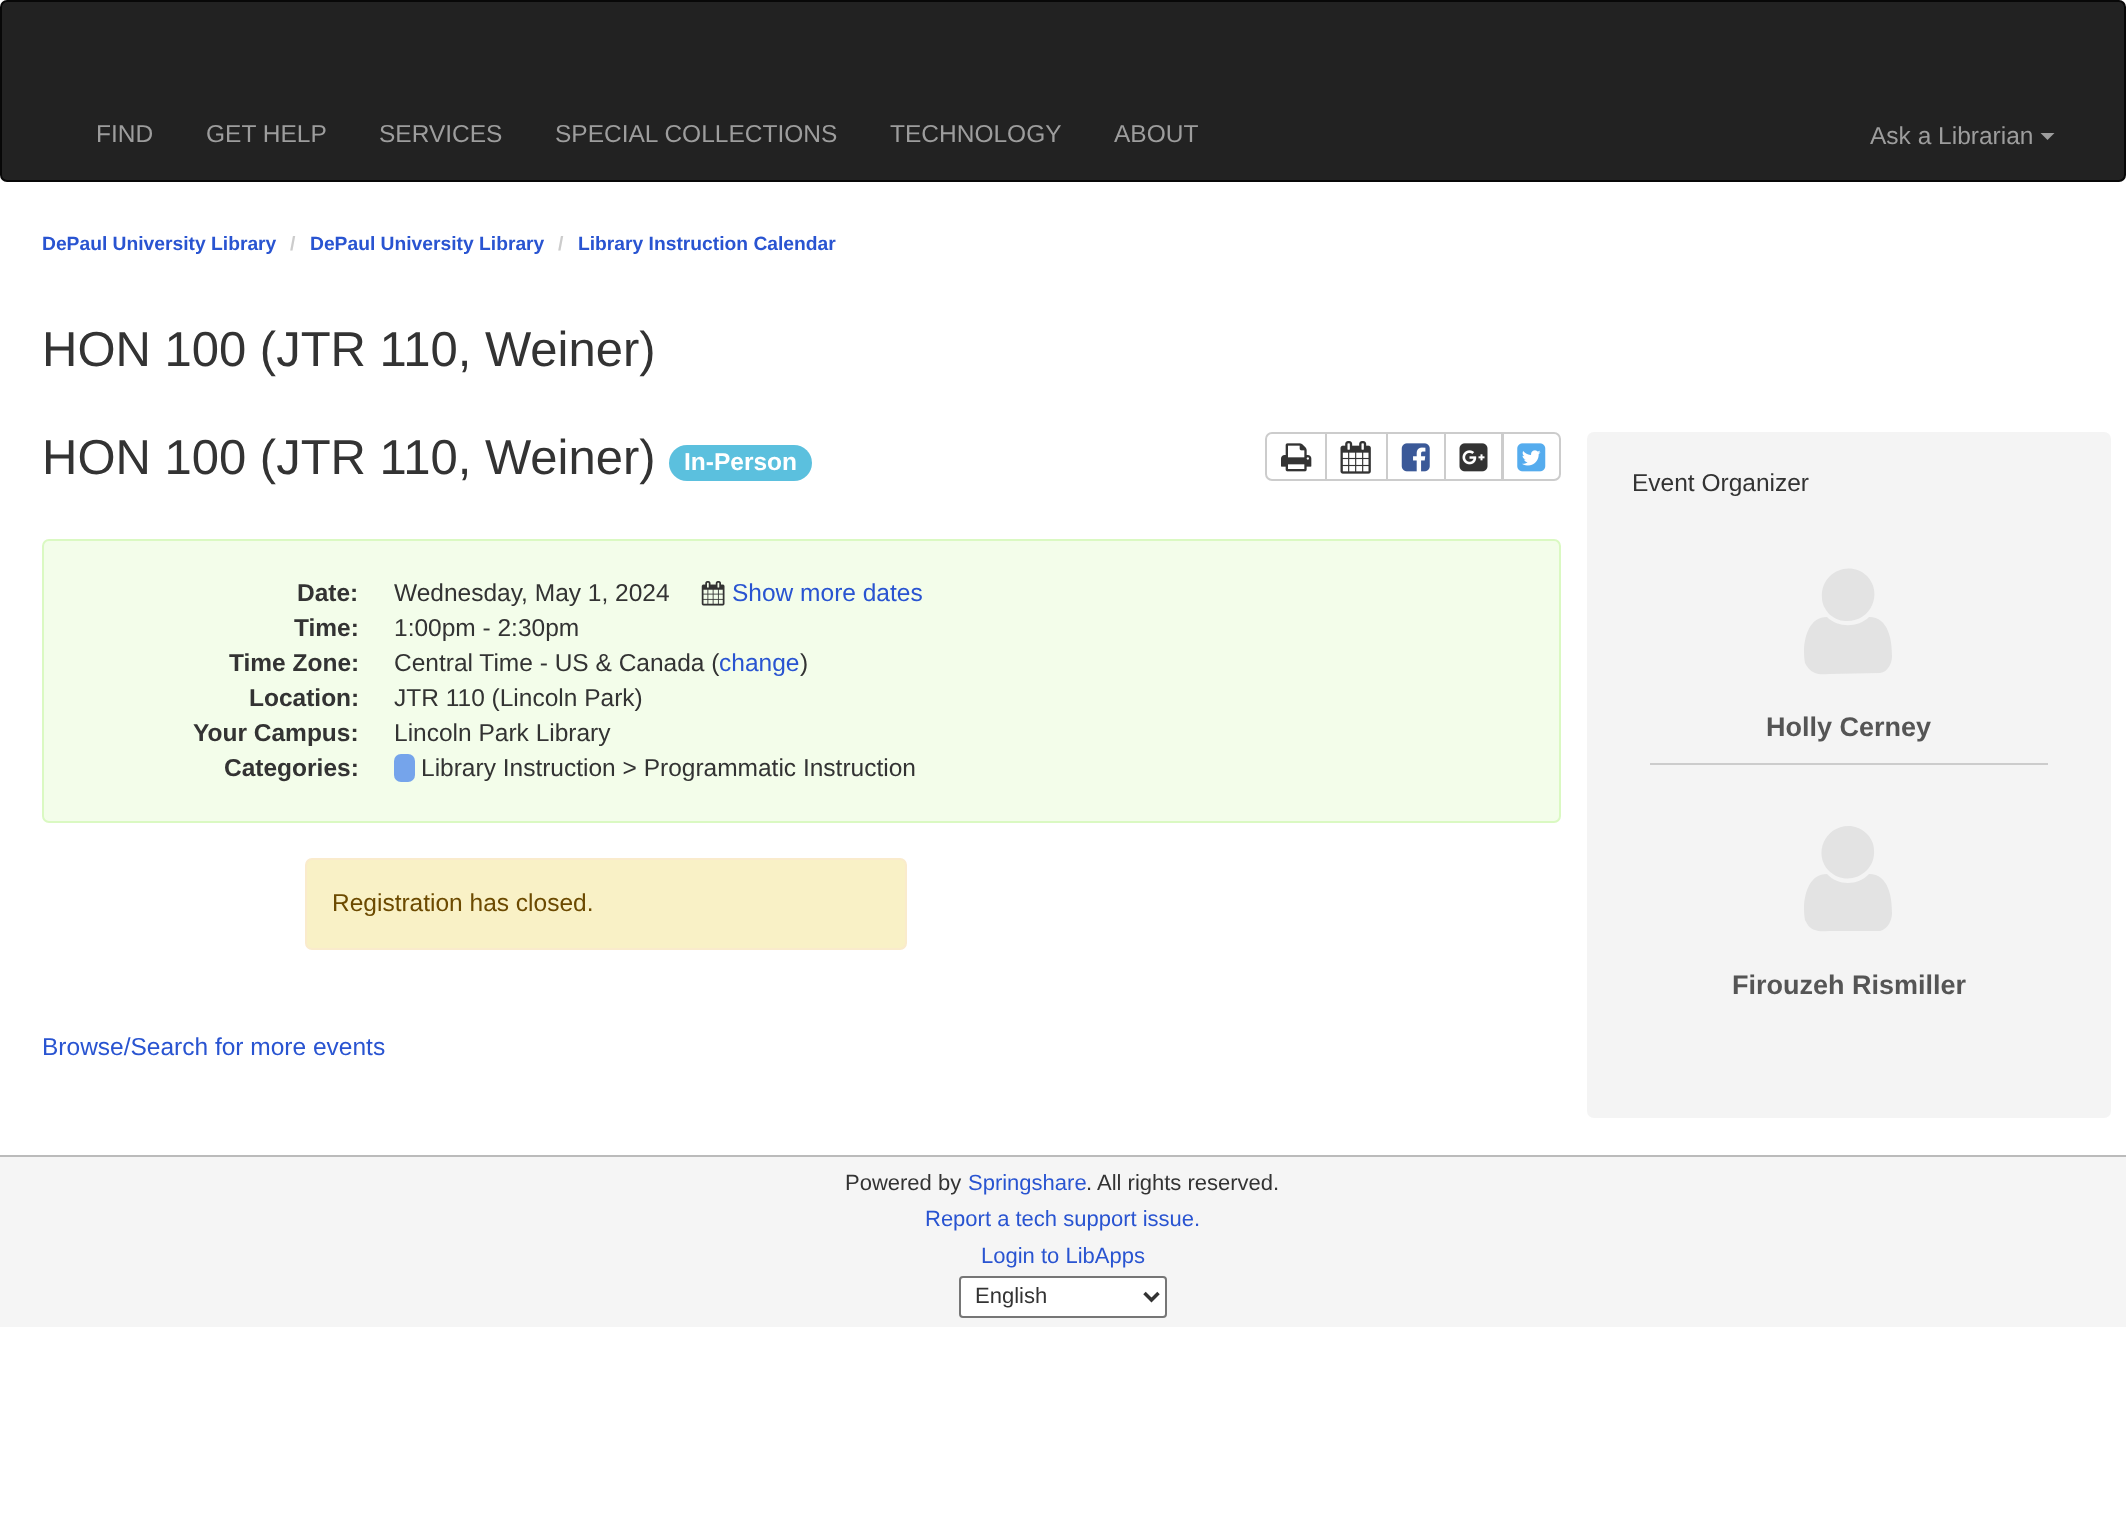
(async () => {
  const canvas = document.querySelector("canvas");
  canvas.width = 2126;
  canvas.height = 1530;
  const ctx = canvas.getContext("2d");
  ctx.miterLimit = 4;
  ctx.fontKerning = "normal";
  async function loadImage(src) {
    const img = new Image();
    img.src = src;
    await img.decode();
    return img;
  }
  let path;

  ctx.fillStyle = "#ffffff";
  ctx.fillRect(0, 0, 2126, 1530);
  ctx.fillStyle = "#222222";
  ctx.beginPath();
  ctx.roundRect(1, 1, 2124, 180, 6);
  ctx.fill();
  ctx.strokeStyle = "#080808";
  ctx.lineWidth = 2;
  ctx.stroke();
  ctx.fillStyle = "#9d9d9d";
  path = new Path2D("M2040.5 133H2054.5L2047.5 140Z");
  ctx.fill(path);
  ctx.fillStyle = "#5bc0de";
  ctx.beginPath();
  ctx.roundRect(669, 445, 143, 36, 18);
  ctx.fill();
  ctx.beginPath();
  ctx.roundRect(1266, 433, 60, 47, [6, 0, 0, 6]);
  ctx.strokeStyle = "#cccccc";
  ctx.stroke();
  ctx.drawImage(await loadImage("img/1.png"), 1281, 443, 31, 29);
  ctx.strokeRect(1326, 433, 61, 47);
  ctx.drawImage(await loadImage("img/2.png"), 1340, 441, 31, 33);
  ctx.strokeRect(1387, 433, 58, 47);
  ctx.drawImage(await loadImage("img/3.png"), 1401, 443, 29, 29);
  ctx.strokeRect(1445, 433, 57, 47);
  ctx.drawImage(await loadImage("img/4.png"), 1459, 443, 29, 29);
  ctx.fillStyle = "#ffffff";
  ctx.beginPath();
  ctx.roundRect(1503, 433, 57, 47, [0, 6, 6, 0]);
  ctx.fill();
  ctx.stroke();
  ctx.drawImage(await loadImage("img/5.png"), 1517, 443, 29, 29);
  ctx.fillStyle = "#f3fdea";
  ctx.beginPath();
  ctx.roundRect(43, 540, 1517, 282, 6);
  ctx.fill();
  ctx.strokeStyle = "#daf9c2";
  ctx.stroke();
  ctx.drawImage(await loadImage("img/6.png"), 701, 581, 24, 25);
  ctx.fillStyle = "#75a4eb";
  ctx.beginPath();
  ctx.roundRect(394, 754, 21, 28, 7);
  ctx.fill();
  ctx.fillStyle = "#f9f1c6";
  ctx.beginPath();
  ctx.roundRect(306, 859, 600, 90, 6);
  ctx.fill();
  ctx.strokeStyle = "#faebcc";
  ctx.stroke();
  ctx.fillStyle = "#f4f4f4";
  ctx.beginPath();
  ctx.roundRect(1587, 432, 524, 686, 7);
  ctx.fill();
  ctx.fillStyle = "#cccccc";
  ctx.fillRect(1650, 763, 398, 2);
  ctx.fillStyle = "#e3e3e3";
  path = new Path2D("M1892 656C1892 663 1888 672 1880 673L1829 674C1825 674 1819 675 1815 673C1810 671 1807 667 1805 663C1804 658 1804 653 1804 649C1805 635 1810 617 1827 617C1838 628 1858 628 1869 617C1889 617 1892 641 1892 656ZM1867 576C1884 594 1870 623 1845 621C1839 621 1834 618 1829 614C1825 609 1822 604 1822 598C1820 573 1849 559 1867 576Z");
  ctx.fill(path);
  path = new Path2D("M1892 913C1892 920 1888 929 1880 931H1829C1825 931 1819 932 1815 930C1810 929 1807 924 1805 920C1804 915 1804 910 1804 906C1805 892 1810 874 1827 874C1838 886 1858 886 1869 874C1889 874 1892 898 1892 913ZM1867 834C1871 838 1874 844 1874 850C1876 874 1847 888 1829 871C1812 853 1826 824 1851 826C1857 827 1862 829 1867 834Z");
  ctx.fill(path);
  ctx.fillStyle = "#f5f5f5";
  ctx.fillRect(0, 1157, 2126, 170);
  ctx.fillStyle = "#bbbbbb";
  ctx.fillRect(0, 1155, 2126, 2);
  ctx.fillStyle = "#ffffff";
  ctx.beginPath();
  ctx.roundRect(960, 1277, 206, 40, 3);
  ctx.fill();
  ctx.strokeStyle = "#767676";
  ctx.stroke();
  path = new Path2D("M1144.5 1293L1151.5 1300L1158.5 1293");
  ctx.strokeStyle = "#333333";
  ctx.lineWidth = 3.5;
  ctx.stroke(path);
  ctx.font = "24.5px Liberation Sans";
  ctx.fillStyle = "#9d9d9d";
  for (const [text, x, y] of [
    ["FIND", 96, 142],
    ["GET HELP", 206, 142],
    ["SERVICES", 379, 142],
    ["SPECIAL COLLECTIONS", 555, 142],
    ["TECHNOLOGY", 890, 142],
    ["ABOUT", 1114, 142],
    ["Ask a Librarian", 1870, 144],
  ]) {
    ctx.fillText(text, x, y);
  }
  ctx.font = "bold 19.25px Liberation Sans";
  ctx.fillStyle = "#2954d1";
  ctx.fillText("DePaul University Library", 42, 250);
  ctx.fillStyle = "#cccccc";
  ctx.fillText("/", 290, 250);
  ctx.fillStyle = "#2954d1";
  ctx.fillText("DePaul University Library", 310, 250);
  ctx.fillStyle = "#cccccc";
  ctx.fillText("/", 558, 250);
  ctx.fillStyle = "#2954d1";
  ctx.fillText("Library Instruction Calendar", 578, 250);
  ctx.font = "49px Liberation Sans";
  ctx.fillStyle = "#333333";
  ctx.fillText("HON 100 (JTR 110, Weiner)", 42, 366);
  ctx.fillText("HON 100 (JTR 110, Weiner)", 42, 474);
  ctx.font = "bold 24.5px Liberation Sans";
  ctx.fillStyle = "#ffffff";
  ctx.fillText("In-Person", 684, 470);
  ctx.fillStyle = "#333333";
  ctx.fillText("Date:", 297, 601);
  ctx.font = "24.5px Liberation Sans";
  ctx.fillText("Wednesday, May 1, 2024", 394, 601);
  ctx.fillStyle = "#2954d1";
  ctx.fillText("Show more dates", 732, 601);
  ctx.font = "bold 24.5px Liberation Sans";
  ctx.fillStyle = "#333333";
  ctx.fillText("Time:", 294, 636);
  ctx.font = "24.5px Liberation Sans";
  ctx.fillText("1:00pm - 2:30pm", 394, 636);
  ctx.font = "bold 24.5px Liberation Sans";
  ctx.fillText("Time Zone:", 229, 671);
  ctx.font = "24.5px Liberation Sans";
  ctx.fillText("Central Time - US & Canada (", 394, 671);
  ctx.fillStyle = "#2954d1";
  ctx.fillText("change", 719, 671);
  ctx.fillStyle = "#333333";
  ctx.fillText(")", 800, 671);
  ctx.font = "bold 24.5px Liberation Sans";
  ctx.fillText("Location:", 249, 706);
  ctx.font = "24.5px Liberation Sans";
  ctx.fillText("JTR 110 (Lincoln Park)", 394, 706);
  ctx.font = "bold 24.5px Liberation Sans";
  ctx.fillText("Your Campus:", 193, 741);
  ctx.font = "24.5px Liberation Sans";
  ctx.fillText("Lincoln Park Library", 394, 741);
  ctx.font = "bold 24.5px Liberation Sans";
  ctx.fillText("Categories:", 224, 776);
  ctx.font = "24.5px Liberation Sans";
  ctx.fillText("Library Instruction > Programmatic Instruction", 421, 776);
  ctx.fillStyle = "#6c4a00";
  ctx.fillText("Registration has closed.", 332, 911);
  ctx.fillStyle = "#2954d1";
  ctx.fillText("Browse/Search for more events", 42, 1055);
  ctx.fillStyle = "#333333";
  ctx.fillText("Event Organizer", 1632, 491);
  ctx.font = "bold 27px Liberation Sans";
  ctx.fillStyle = "#555555";
  ctx.fillText("Holly Cerney", 1766, 736);
  ctx.fillText("Firouzeh Rismiller", 1732, 994);
  ctx.font = "22px Liberation Sans";
  ctx.fillStyle = "#333333";
  ctx.fillText("Powered by", 845, 1190);
  ctx.fillStyle = "#2954d1";
  ctx.fillText("Springshare", 968, 1190);
  ctx.fillStyle = "#333333";
  ctx.fillText(". All rights reserved.", 1086, 1190);
  ctx.fillStyle = "#2954d1";
  ctx.fillText("Report a tech support issue.", 925, 1226);
  ctx.fillText("Login to LibApps", 981, 1263);
  ctx.fillStyle = "#333333";
  ctx.fillText("English", 975, 1303);
})();
